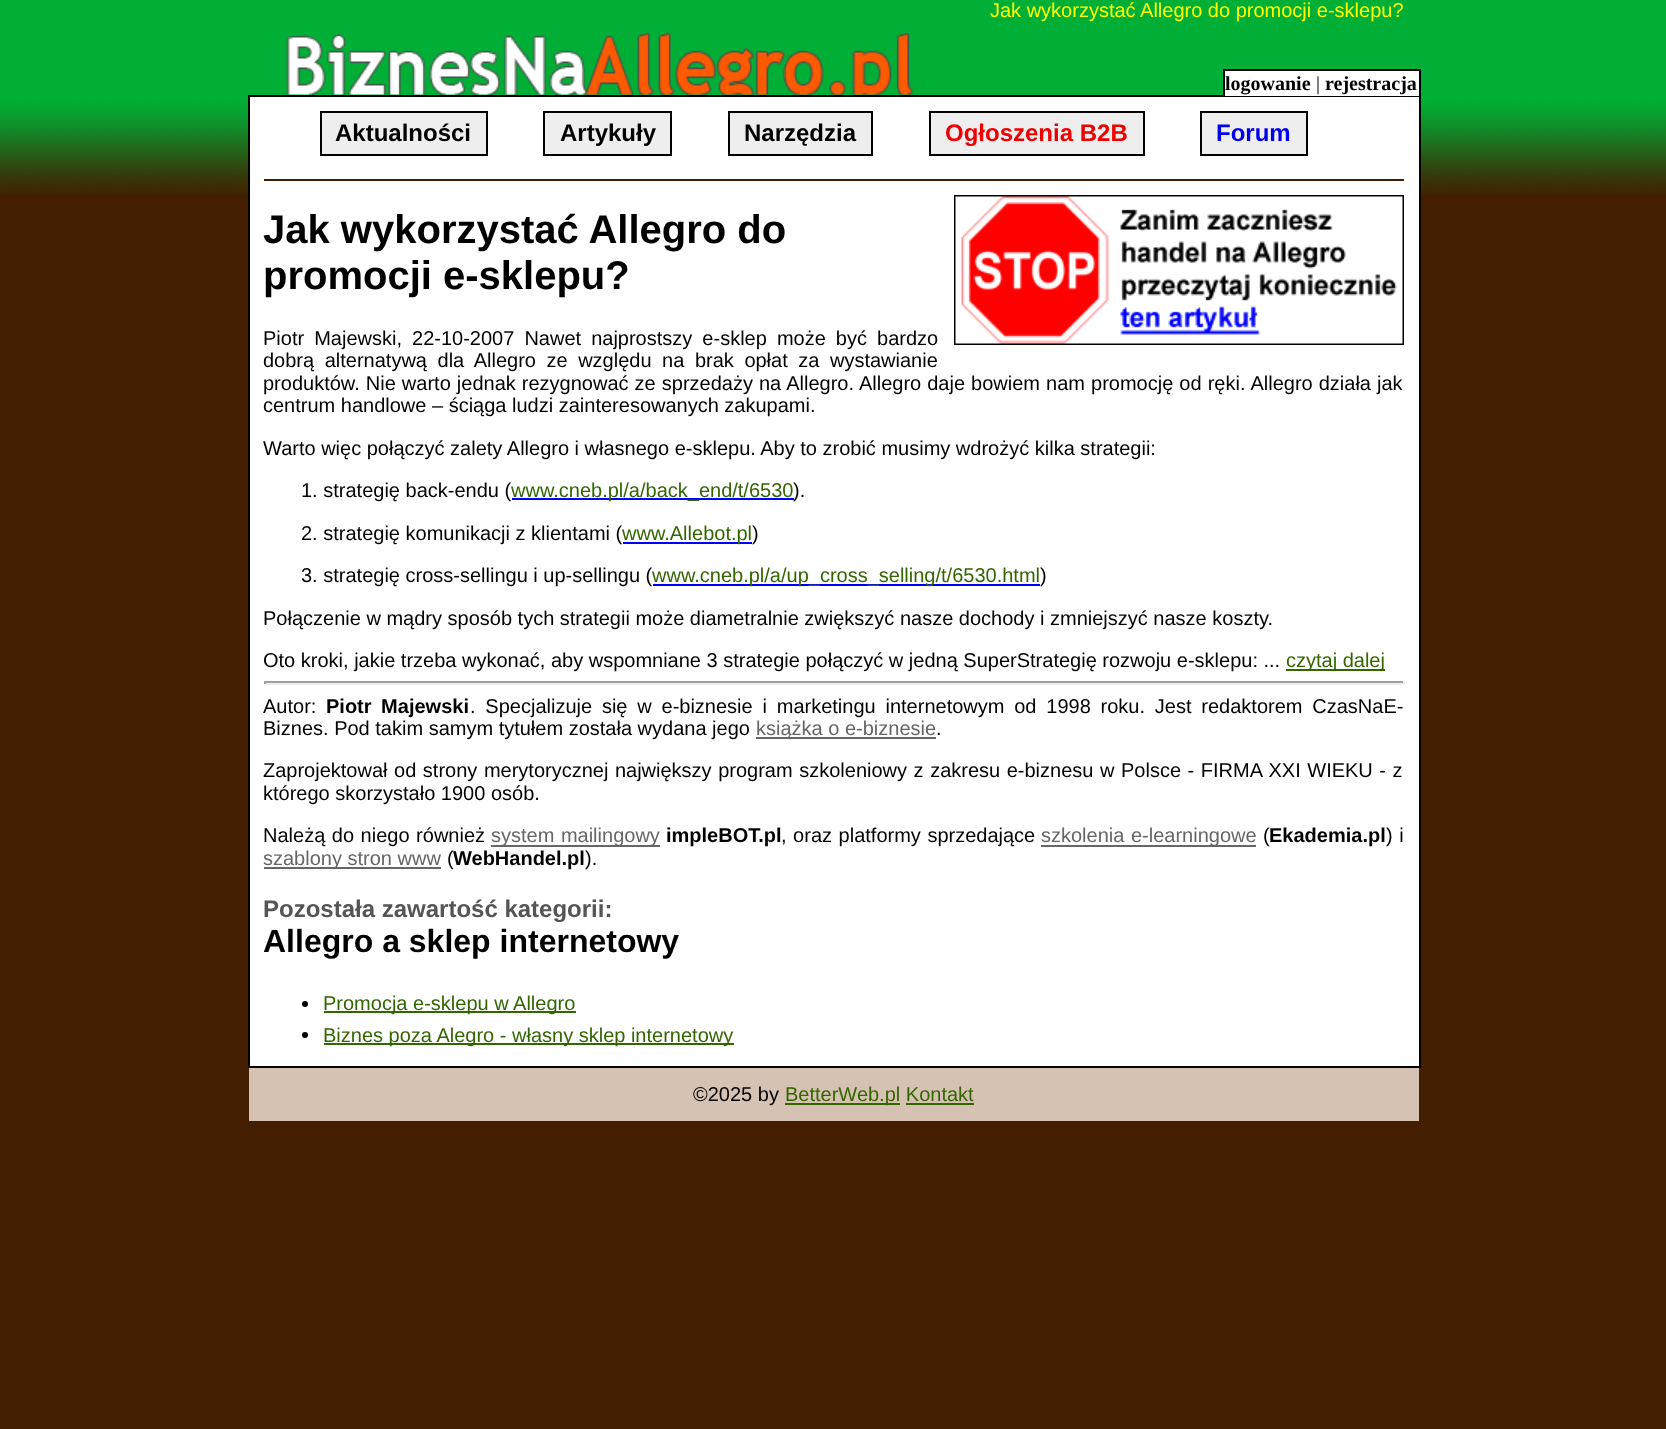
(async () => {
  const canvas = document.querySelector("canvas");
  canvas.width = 1666;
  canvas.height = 1429;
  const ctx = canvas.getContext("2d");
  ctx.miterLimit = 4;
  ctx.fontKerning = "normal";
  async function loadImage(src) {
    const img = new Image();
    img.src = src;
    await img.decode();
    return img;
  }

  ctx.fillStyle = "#431e01";
  ctx.fillRect(0, 0, 1666, 1429);
  ctx.drawImage(await loadImage("img/1.png"), 0, 0, 1666, 195);
  ctx.drawImage(await loadImage("img/2.png"), 286, 32, 628, 63);
  ctx.fillStyle = "#ffffff";
  ctx.beginPath();
  ctx.rect(249, 96, 1171, 971);
  ctx.fill();
  ctx.strokeStyle = "#000000";
  ctx.lineWidth = 2;
  ctx.stroke();
  for (const [x, y, w, h, color] of [
    [1225, 71, 194, 25, "#ffffff"],
    [1223, 69, 198, 2, "#000000"],
    [1419, 69, 2, 27, "#000000"],
    [1223, 69, 2, 27, "#000000"],
    [264, 179, 1140, 2, "#431e01"],
  ]) {
    ctx.fillStyle = color;
    ctx.fillRect(x, y, w, h);
  }
  ctx.fillStyle = "#eeeeee";
  ctx.beginPath();
  ctx.rect(321, 112, 166, 43);
  ctx.fill();
  ctx.stroke();
  ctx.beginPath();
  ctx.rect(544, 112, 127, 43);
  ctx.fill();
  ctx.stroke();
  ctx.beginPath();
  ctx.rect(729, 112, 143, 43);
  ctx.fill();
  ctx.stroke();
  ctx.beginPath();
  ctx.rect(930, 112, 214, 43);
  ctx.fill();
  ctx.stroke();
  ctx.beginPath();
  ctx.rect(1201, 112, 106, 43);
  ctx.fill();
  ctx.stroke();
  ctx.drawImage(await loadImage("img/3.png"), 954, 195, 450, 150);
  for (const [x, y, w, h, color] of [
    [512, 498, 282, 2, "#0000ff"],
    [623, 542, 129, 2, "#0000ff"],
    [653, 584, 387, 2, "#0000ff"],
    [1286, 669, 99, 2, "#336600"],
    [264, 681, 1140, 2, "#9f9f9f"],
    [1403, 681, 2, 3, "#eeeeee"],
    [264, 683, 1140, 2, "#eeeeee"],
    [264, 681, 2, 3, "#9f9f9f"],
    [756, 737, 180, 2, "#666666"],
    [491, 845, 169, 2, "#666666"],
    [1041, 845, 215, 2, "#666666"],
    [264, 867, 177, 2, "#666666"],
  ]) {
    ctx.fillStyle = color;
    ctx.fillRect(x, y, w, h);
  }
  ctx.fillStyle = "#000000";
  ctx.beginPath();
  ctx.arc(305, 1004, 3, 0, Math.PI * 2);
  ctx.fill();
  ctx.fillStyle = "#336600";
  ctx.fillRect(324, 1011, 252, 2);
  ctx.fillStyle = "#000000";
  ctx.beginPath();
  ctx.arc(305, 1035, 3, 0, Math.PI * 2);
  ctx.fill();
  for (const [x, y, w, h, color] of [
    [324, 1043, 410, 2, "#336600"],
    [249, 1068, 1170, 53, "#d6c2b3"],
    [785, 1103, 115, 2, "#336600"],
    [906, 1103, 68, 2, "#336600"],
  ]) {
    ctx.fillStyle = color;
    ctx.fillRect(x, y, w, h);
  }
  ctx.font = "20px Liberation Sans";
  ctx.fillStyle = "#ffff00";
  ctx.fillText("Jak wykorzystać Allegro do promocji e-sklepu?", 990, 17);
  ctx.font = "bold 20px Liberation Serif";
  ctx.fillStyle = "#000000";
  ctx.fillText("logowanie", 1225, 90);
  ctx.font = "20px Liberation Serif";
  ctx.fillText("|", 1316, 90);
  ctx.font = "bold 20px Liberation Serif";
  ctx.fillText("rejestracja", 1325, 90);
  ctx.font = "bold 24px Liberation Sans";
  for (const [text, x, y] of [
    ["Aktualności", 335, 141],
    ["Artykuły", 560, 141],
    ["Narzędzia", 744, 141],
  ]) {
    ctx.fillText(text, x, y);
  }
  ctx.fillStyle = "#ee0000";
  ctx.fillText("Ogłoszenia B2B", 945, 141);
  ctx.fillStyle = "#0000ee";
  ctx.fillText("Forum", 1216, 141);
  ctx.font = "bold 40px Liberation Sans";
  ctx.fillStyle = "#000000";
  ctx.fillText("Jak wykorzystać Allegro do", 263, 243);
  ctx.fillText("promocji e-sklepu?", 263, 289);
  ctx.wordSpacing = "4.5px";
  ctx.font = "20px Liberation Sans";
  ctx.fillText("Piotr Majewski, 22-10-2007 Nawet najprostszy e-sklep może być bardzo", 263, 345);
  ctx.wordSpacing = "5px";
  ctx.fillText("dobrą alternatywą dla Allegro ze względu na brak opłat za wystawianie", 263, 367);
  ctx.wordSpacing = "0.5px";
  ctx.fillText("produktów. Nie warto jednak rezygnować ze sprzedaży na Allegro. Allegro daje bowiem nam promocję od ręki. Allegro działa jak", 263, 390);
  ctx.wordSpacing = "0px";
  for (const [text, x, y] of [
    ["centrum handlowe – ściąga ludzi zainteresowanych zakupami.", 263, 412],
    ["Warto więc połączyć zalety Allegro i własnego e-sklepu. Aby to zrobić musimy wdrożyć kilka strategii:", 263, 455],
    ["1. strategię back-endu (", 301, 497],
  ]) {
    ctx.fillText(text, x, y);
  }
  ctx.fillStyle = "#336600";
  ctx.fillText("www.cneb.pl/a/back_end/t/6530", 511, 497);
  ctx.fillStyle = "#000000";
  ctx.fillText(").", 793, 497);
  ctx.fillText("2. strategię komunikacji z klientami (", 301, 540);
  ctx.fillStyle = "#336600";
  ctx.fillText("www.Allebot.pl", 622, 540);
  ctx.fillStyle = "#000000";
  ctx.fillText(")", 752, 540);
  ctx.fillText("3. strategię cross-sellingu i up-sellingu (", 301, 582);
  ctx.fillStyle = "#336600";
  ctx.fillText("www.cneb.pl/a/up_cross_selling/t/6530.html", 652, 582);
  ctx.fillStyle = "#000000";
  for (const [text, x, y] of [
    [")", 1040, 582],
    ["Połączenie w mądry sposób tych strategii może diametralnie zwiększyć nasze dochody i zmniejszyć nasze koszty.", 263, 625],
    ["Oto kroki, jakie trzeba wykonać, aby wspomniane 3 strategie połączyć w jedną SuperStrategię rozwoju e-sklepu: ...", 263, 667],
  ]) {
    ctx.fillText(text, x, y);
  }
  ctx.fillStyle = "#336600";
  ctx.fillText("czytaj dalej", 1286, 667);
  ctx.fillStyle = "#000000";
  ctx.fillText("Autor:", 263, 713);
  ctx.wordSpacing = "4px";
  ctx.font = "bold 20px Liberation Sans";
  ctx.fillText("Piotr Majewski", 326, 713);
  ctx.wordSpacing = "4.25px";
  ctx.font = "20px Liberation Sans";
  ctx.fillText(". Specjalizuje się w e-biznesie i marketingu internetowym od 1998 roku. Jest redaktorem CzasNaE-", 470, 713);
  ctx.wordSpacing = "0px";
  ctx.fillText("Biznes. Pod takim samym tytułem została wydana jego", 263, 735);
  ctx.fillStyle = "#666666";
  ctx.fillText("książka o e-biznesie", 756, 735);
  ctx.fillStyle = "#000000";
  ctx.fillText(".", 936, 735);
  ctx.wordSpacing = "1px";
  ctx.fillText("Zaprojektował od strony merytorycznej największy program szkoleniowy z zakresu e-biznesu w Polsce - FIRMA XXI WIEKU - z", 263, 777);
  ctx.wordSpacing = "0px";
  ctx.fillText("którego skorzystało 1900 osób.", 263, 800);
  ctx.wordSpacing = "1px";
  ctx.fillText("Należą do niego również", 263, 842);
  ctx.fillStyle = "#666666";
  ctx.fillText("system mailingowy", 491, 842);
  ctx.wordSpacing = "0px";
  ctx.font = "bold 20px Liberation Sans";
  ctx.fillStyle = "#000000";
  ctx.fillText("impleBOT.pl", 666, 842);
  ctx.wordSpacing = "1px";
  ctx.font = "20px Liberation Sans";
  ctx.fillText(", oraz platformy sprzedające", 781, 842);
  ctx.fillStyle = "#666666";
  ctx.fillText("szkolenia e-learning", 1041, 842);
  ctx.wordSpacing = "0px";
  ctx.fillText("owe", 1220, 842);
  ctx.fillStyle = "#000000";
  ctx.fillText("(", 1263, 842);
  ctx.font = "bold 20px Liberation Sans";
  ctx.fillText("Ekademia.pl", 1269, 842);
  ctx.wordSpacing = "1px";
  ctx.font = "20px Liberation Sans";
  ctx.fillText(") i", 1386, 842);
  ctx.wordSpacing = "0px";
  ctx.fillStyle = "#666666";
  ctx.fillText("szablony stron www", 263, 865);
  ctx.fillStyle = "#000000";
  ctx.fillText("(", 447, 865);
  ctx.font = "bold 20px Liberation Sans";
  ctx.fillText("WebHandel.pl", 453, 865);
  ctx.font = "20px Liberation Sans";
  ctx.fillText(").", 585, 865);
  ctx.font = "bold 24px Liberation Sans";
  ctx.fillStyle = "#555555";
  ctx.fillText("Pozostała zawartość kategorii:", 263, 917);
  ctx.font = "bold 32px Liberation Sans";
  ctx.fillStyle = "#000000";
  ctx.fillText("Allegro a sklep internetowy", 263, 952);
  ctx.font = "20px Liberation Sans";
  ctx.fillStyle = "#336600";
  ctx.fillText("Promocja e-sklepu w Allegro", 323, 1010);
  ctx.fillText("Biznes poza Alegro - własny sklep internetowy", 323, 1042);
  ctx.fillStyle = "#000000";
  ctx.fillText("©2025 by", 693, 1101);
  ctx.fillStyle = "#336600";
  ctx.fillText("BetterWeb.pl Kontakt", 785, 1101);
})();
